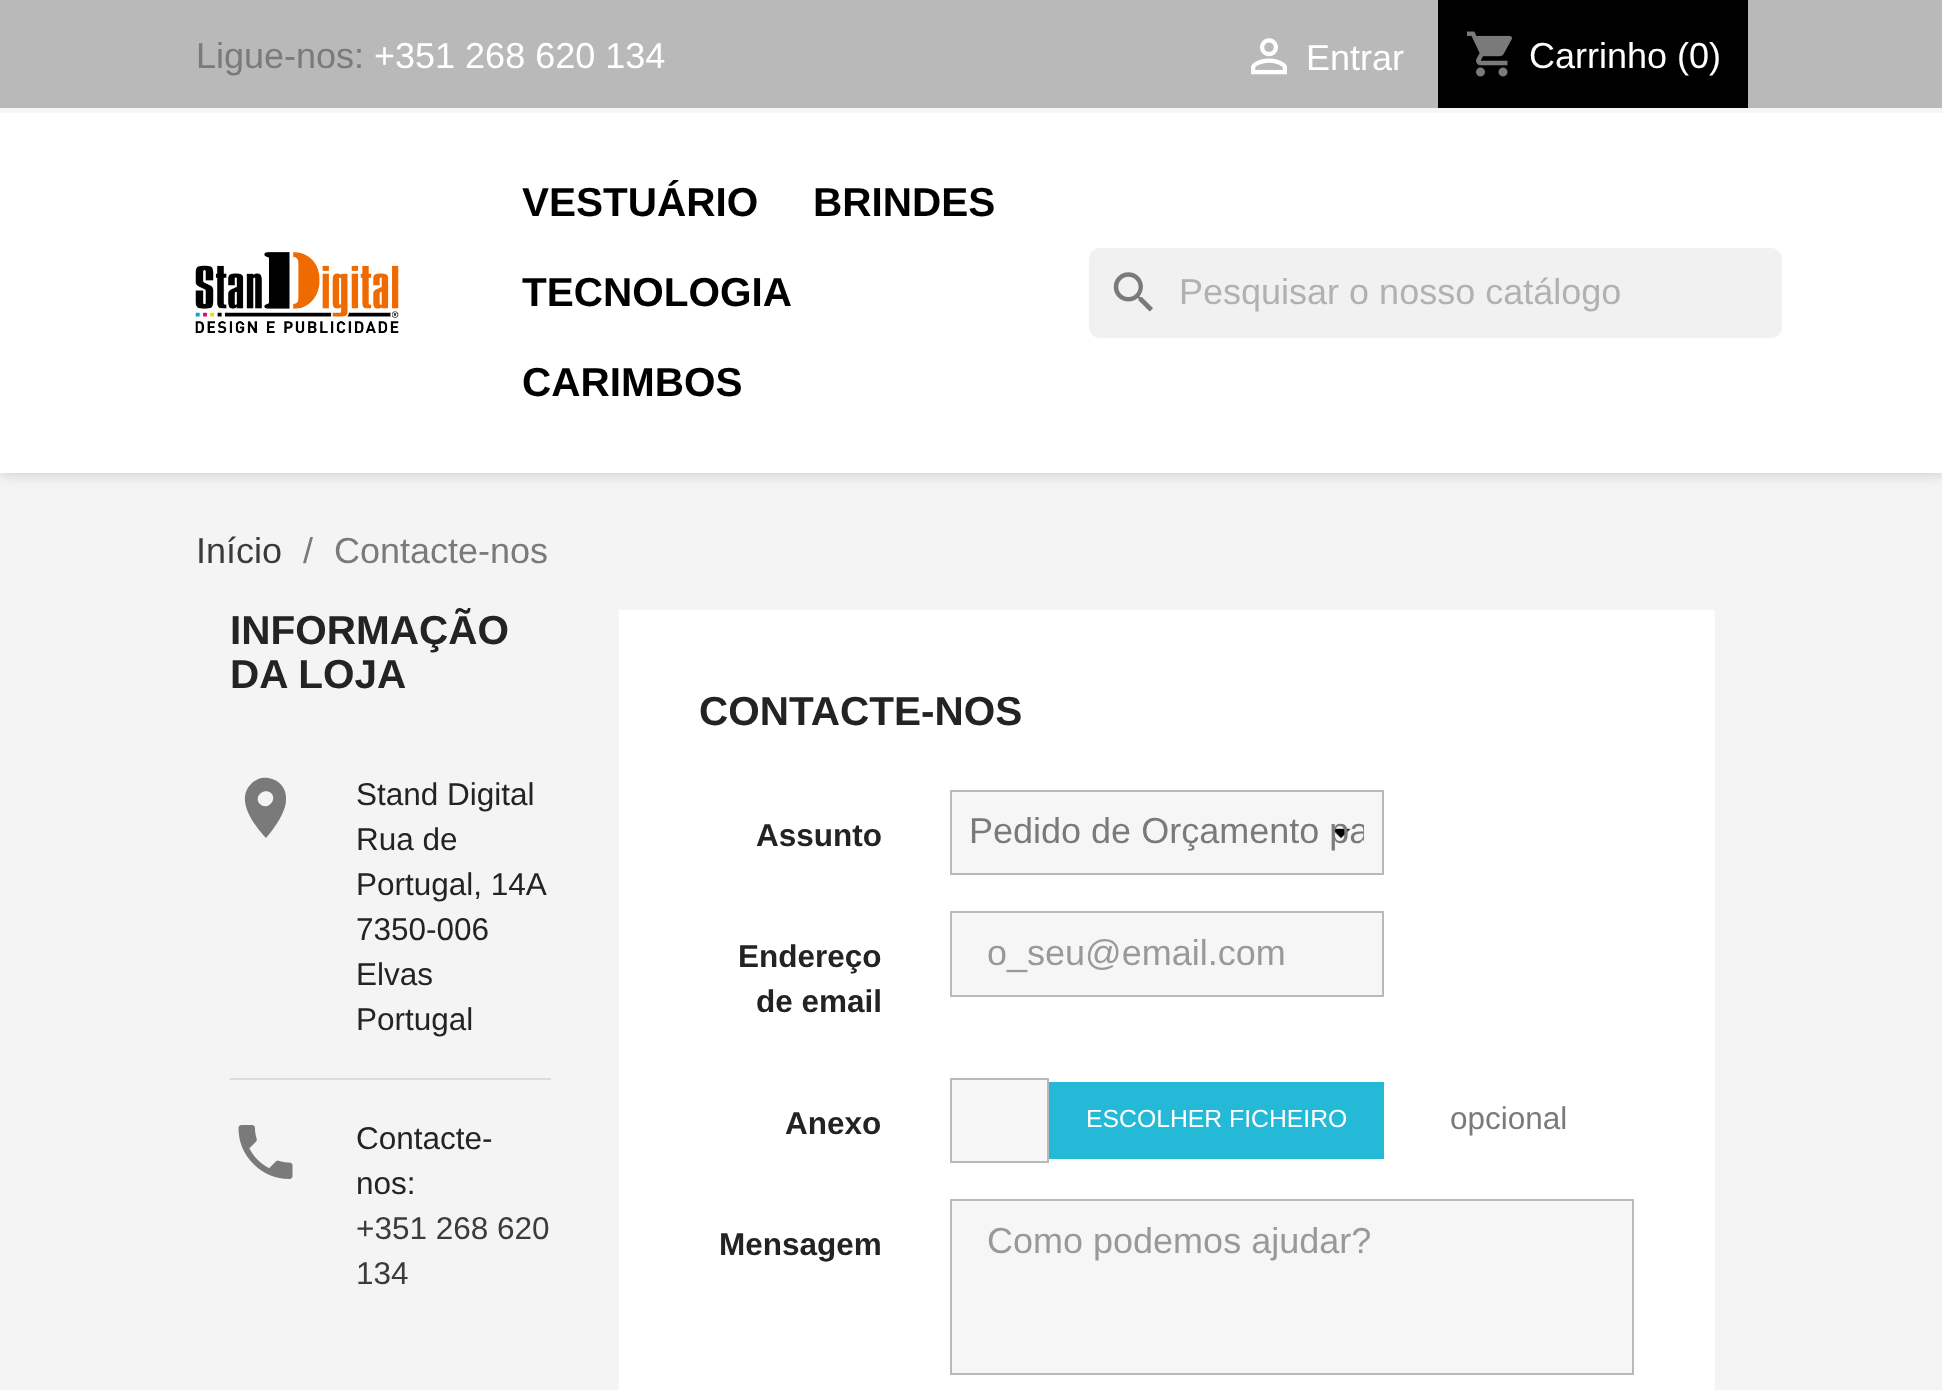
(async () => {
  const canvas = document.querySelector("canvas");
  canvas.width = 1942;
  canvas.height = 1390;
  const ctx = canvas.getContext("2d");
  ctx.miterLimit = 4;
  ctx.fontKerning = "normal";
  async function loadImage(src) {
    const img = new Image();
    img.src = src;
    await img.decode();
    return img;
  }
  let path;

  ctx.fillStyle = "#f4f4f4";
  ctx.fillRect(0, 0, 1942, 1390);
  ctx.fillStyle = "rgba(0, 0, 0, 0.11)";
  ctx.filter = "blur(5.5px)";
  ctx.beginPath();
  ctx.rect(0, 5, 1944, 472);
  ctx.fill();
  ctx.filter = "none";
  for (const [x, y, w, h, color] of [
    [0, 113, 1942, 360, "#ffffff"],
    [0, 0, 1942, 108, "#b9b9b9"],
    [0, 108, 1942, 5, "#f6f6f6"],
  ]) {
    ctx.fillStyle = color;
    ctx.fillRect(x, y, w, h);
  }
  ctx.drawImage(await loadImage("img/1.png"), 1251, 38, 36, 37);
  ctx.fillStyle = "#000000";
  ctx.fillRect(1438, 0, 310, 108);
  ctx.drawImage(await loadImage("img/2.png"), 1466, 31, 46, 46);
  ctx.drawImage(await loadImage("img/3.png"), 195, 252, 204, 81);
  ctx.fillStyle = "#f1f1f1";
  ctx.beginPath();
  ctx.roundRect(1089, 248, 693, 90, 11);
  ctx.fill();
  ctx.drawImage(await loadImage("img/4.png"), 1113, 272, 40, 40);
  ctx.fillStyle = "#7a7a7a";
  path = new Path2D("M260 804C267 811 278 800 271 793C264 787 253 797 260 804ZM251 784C264 770 288 781 286 800C286 812 274 829 266 838C254 825 235 800 251 784Z");
  ctx.fill(path);
  ctx.fillStyle = "#dcdcdc";
  ctx.fillRect(230, 1078, 321, 2);
  ctx.drawImage(await loadImage("img/5.png"), 238, 1125, 55, 54);
  ctx.fillStyle = "#ffffff";
  ctx.fillRect(619, 610, 1096, 780);
  ctx.fillStyle = "#f6f6f6";
  ctx.fillRect(952, 792, 430, 81);
  ctx.drawImage(await loadImage("img/6.png"), 1331, 828, 20, 11);
  ctx.strokeStyle = "#b9b9b9";
  ctx.lineWidth = 2;
  ctx.strokeRect(951, 791, 432, 83);
  ctx.beginPath();
  ctx.rect(951, 912, 432, 84);
  ctx.fill();
  ctx.stroke();
  ctx.beginPath();
  ctx.rect(951, 1079, 97, 83);
  ctx.fill();
  ctx.stroke();
  ctx.fillStyle = "#24b9d7";
  ctx.fillRect(1049, 1082, 335, 77);
  ctx.fillStyle = "#f6f6f6";
  ctx.beginPath();
  ctx.rect(951, 1200, 682, 174);
  ctx.fill();
  ctx.stroke();
  ctx.font = "36px Liberation Sans";
  ctx.fillStyle = "#7a7a7a";
  ctx.fillText("Ligue-nos:", 196, 68);
  ctx.fillStyle = "#ffffff";
  for (const [text, x, y] of [
    ["+351 268 620 134", 374, 68],
    ["Entrar", 1306, 70],
    ["Carrinho (0)", 1529, 68],
  ]) {
    ctx.fillText(text, x, y);
  }
  ctx.font = "bold 40.5px Liberation Sans";
  ctx.fillStyle = "#000000";
  for (const [text, x, y] of [
    ["VESTUÁRIO", 522, 216],
    ["BRINDES", 813, 216],
    ["TECNOLOGIA", 522, 306],
    ["CARIMBOS", 522, 396],
  ]) {
    ctx.fillText(text, x, y);
  }
  ctx.font = "36px Liberation Sans";
  ctx.fillStyle = "#b1b1b1";
  ctx.fillText("Pesquisar o nosso catálogo", 1179, 304);
  ctx.fillStyle = "#3b3b3b";
  ctx.fillText("Início", 196, 563);
  ctx.fillStyle = "#7a7a7a";
  ctx.fillText("/", 303, 563);
  ctx.fillText("Contacte-nos", 334, 563);
  ctx.font = "bold 40.5px Liberation Sans";
  ctx.fillStyle = "#232323";
  ctx.fillText("INFORMAÇÃO", 230, 644);
  ctx.fillText("DA LOJA", 230, 688);
  ctx.font = "31.5px Liberation Sans";
  for (const [text, x, y] of [
    ["Stand Digital", 356, 805],
    ["Rua de", 356, 850],
    ["Portugal, 14A", 356, 895],
    ["7350-006", 356, 940],
    ["Elvas", 356, 985],
    ["Portugal", 356, 1030],
    ["Contacte-", 356, 1149],
    ["nos:", 356, 1194],
  ]) {
    ctx.fillText(text, x, y);
  }
  ctx.fillStyle = "#3b3b3b";
  ctx.fillText("+351 268 620", 356, 1239);
  ctx.fillText("134", 356, 1284);
  ctx.font = "bold 40.5px Liberation Sans";
  ctx.fillStyle = "#232323";
  ctx.fillText("CONTACTE-NOS", 699, 725);
  ctx.font = "bold 31.5px Liberation Sans";
  ctx.fillText("Assunto", 756, 846);
  ctx.save();
  ctx.beginPath();
  ctx.rect(970, 810, 394, 45);
  ctx.clip();
  ctx.font = "36px Liberation Sans";
  ctx.fillStyle = "#7a7a7a";
  ctx.fillText("Pedido de Orçamento pa", 969, 843);
  ctx.restore();
  ctx.fillText("Endereço", 738, 967);
  ctx.fillText("de email", 756, 1012);
  ctx.font = "36px Liberation Sans";
  ctx.fillStyle = "#999999";
  ctx.fillText("o_seu@email.com", 987, 965);
  ctx.font = "bold 31.5px Liberation Sans";
  ctx.fillStyle = "#232323";
  ctx.fillText("Anexo", 785, 1134);
  ctx.font = "24.75px Liberation Sans";
  ctx.fillStyle = "#ffffff";
  ctx.fillText("ESCOLHER FICHEIRO", 1086, 1127);
  ctx.font = "31.5px Liberation Sans";
  ctx.fillStyle = "#7a7a7a";
  ctx.fillText("opcional", 1450, 1129);
  ctx.font = "bold 31.5px Liberation Sans";
  ctx.fillStyle = "#232323";
  ctx.fillText("Mensagem", 719, 1255);
  ctx.font = "36px Liberation Sans";
  ctx.fillStyle = "#999999";
  ctx.fillText("Como podemos ajudar?", 987, 1253);
})();
